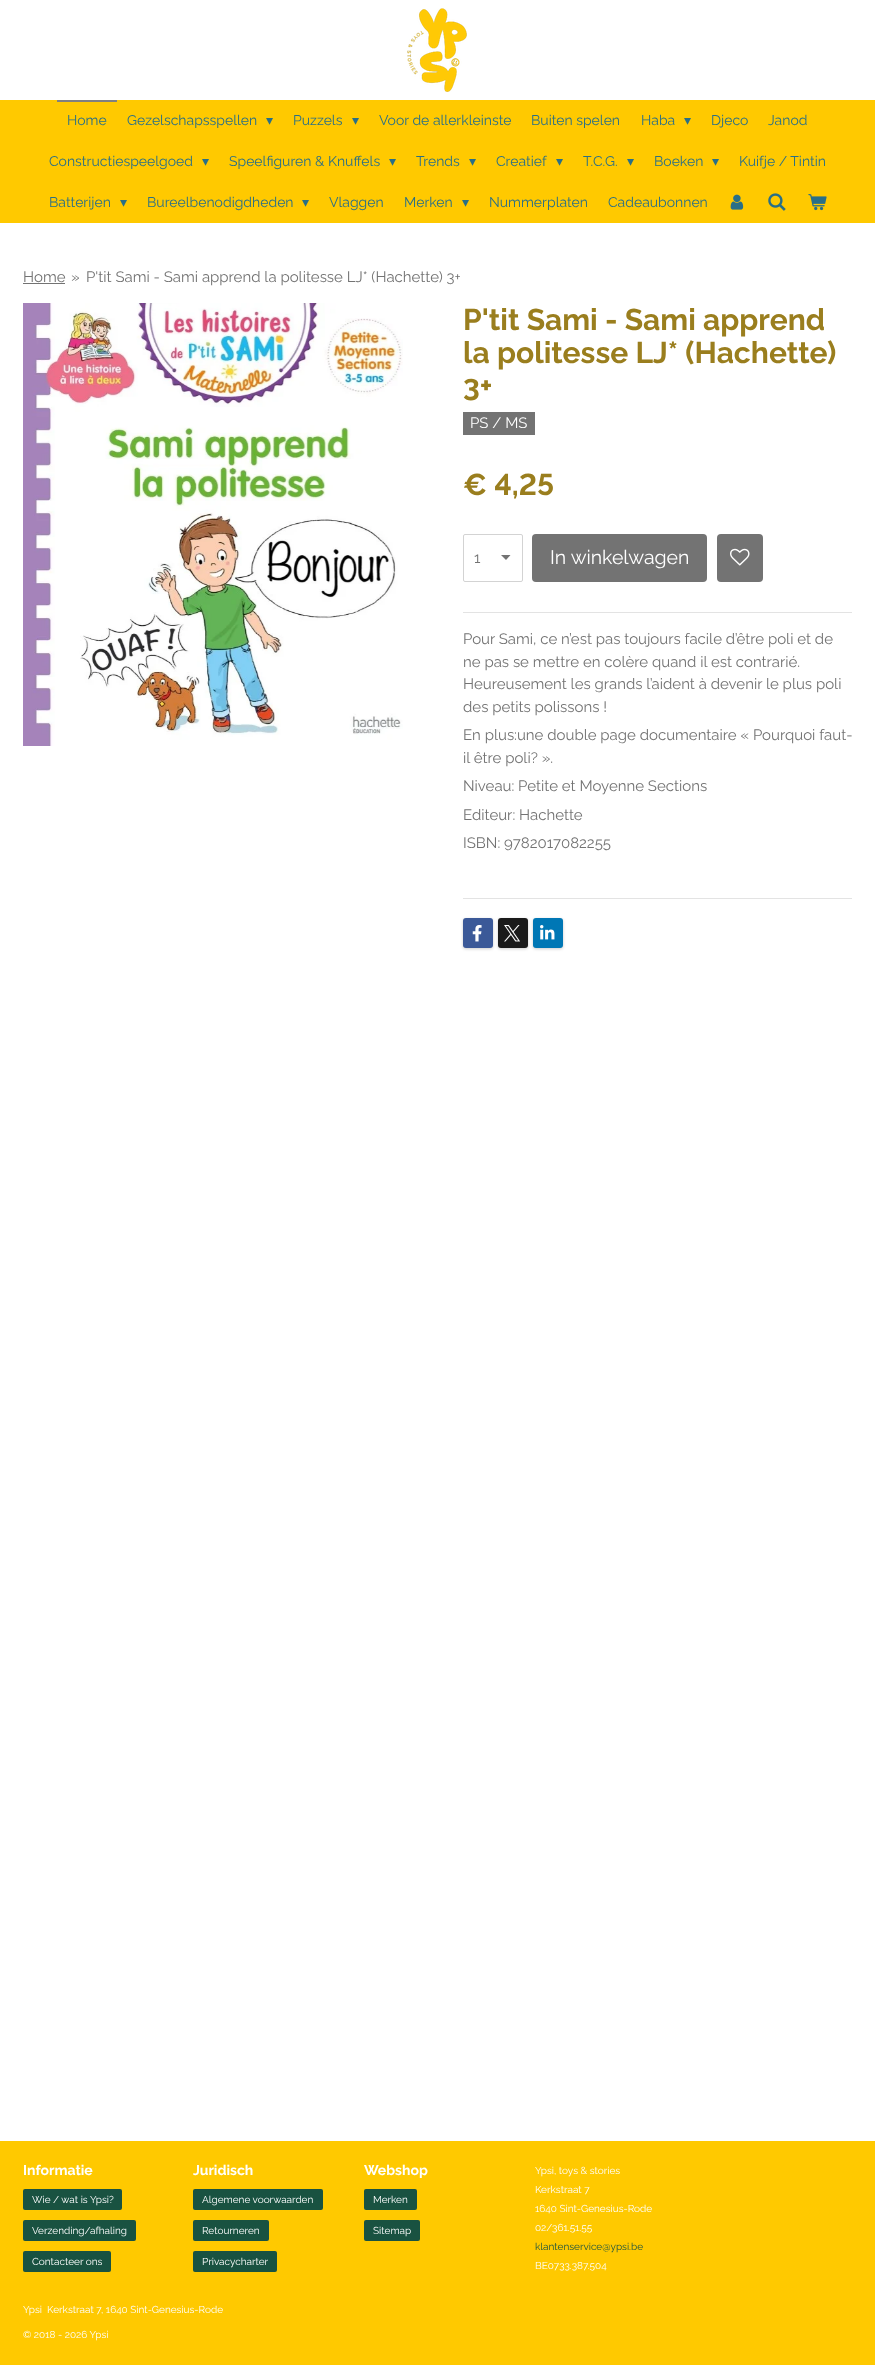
(async () => {
  const canvas = document.querySelector("canvas");
  canvas.width = 875;
  canvas.height = 2365;
  const ctx = canvas.getContext("2d");
  ctx.miterLimit = 4;
  ctx.fontKerning = "normal";
  async function loadImage(src) {
    const img = new Image();
    img.src = src;
    await img.decode();
    return img;
  }
  let path;

  ctx.fillStyle = "#ffffff";
  ctx.fillRect(0, 0, 875, 2365);
  ctx.drawImage(await loadImage("img/1.png"), 407, 8, 60, 84);
  ctx.fillStyle = "#ffc900";
  ctx.fillRect(0, 100, 875, 123);
  ctx.fillStyle = "#808080";
  ctx.fillRect(57, 100, 60, 2);
  ctx.drawImage(await loadImage("img/2.png"), 730, 194, 14, 16);
  ctx.drawImage(await loadImage("img/3.png"), 768, 193, 18, 18);
  ctx.drawImage(await loadImage("img/4.png"), 808, 194, 19, 17);
  ctx.fillStyle = "#737373";
  ctx.fillRect(23, 283, 42, 1);
  ctx.drawImage(await loadImage("img/5.png"), 23, 303, 380, 443);
  ctx.fillRect(463, 412, 72, 23);
  path = new Path2D("M506 560L501 555H510.5Z");
  ctx.fill(path);
  ctx.beginPath();
  ctx.roundRect(463.5, 534.5, 59, 47, 1.5);
  ctx.strokeStyle = "#d3d3d3";
  ctx.stroke();
  ctx.beginPath();
  ctx.roundRect(532, 534, 175, 48, 4);
  ctx.fill();
  ctx.beginPath();
  ctx.roundRect(717, 534, 46, 48, 4);
  ctx.fill();
  ctx.drawImage(await loadImage("img/6.png"), 730, 548, 20, 18);
  ctx.fillStyle = "#e3e3e3";
  ctx.fillRect(463, 612, 389, 1);
  ctx.fillRect(463, 898, 389, 1);
  ctx.fillStyle = "rgba(0, 0, 0, 0.2)";
  ctx.filter = "blur(1.5px)";
  ctx.beginPath();
  ctx.roundRect(463, 919, 30, 30, 3);
  ctx.fill();
  ctx.filter = "none";
  ctx.fillStyle = "#3b5998";
  ctx.beginPath();
  ctx.roundRect(463, 918, 30, 30, 3);
  ctx.fill();
  ctx.drawImage(await loadImage("img/7.png"), 472, 925, 10, 17);
  ctx.fillStyle = "rgba(0, 0, 0, 0.2)";
  ctx.filter = "blur(1.5px)";
  ctx.beginPath();
  ctx.roundRect(498, 919, 30, 30, 3);
  ctx.fill();
  ctx.filter = "none";
  ctx.fillStyle = "#1a1a1a";
  ctx.beginPath();
  ctx.roundRect(498, 918, 30, 30, 3);
  ctx.fill();
  ctx.drawImage(await loadImage("img/8.png"), 504, 925, 16, 17);
  ctx.fillStyle = "rgba(0, 0, 0, 0.2)";
  ctx.filter = "blur(1.5px)";
  ctx.beginPath();
  ctx.roundRect(533, 919, 30, 30, 3);
  ctx.fill();
  ctx.filter = "none";
  ctx.fillStyle = "#0077b5";
  ctx.beginPath();
  ctx.roundRect(533, 918, 30, 30, 3);
  ctx.fill();
  ctx.drawImage(await loadImage("img/9.png"), 540, 925, 15, 15);
  ctx.fillStyle = "#ffc900";
  ctx.fillRect(0, 2141, 875, 224);
  ctx.fillStyle = "#195241";
  ctx.beginPath();
  ctx.roundRect(23, 2189, 99, 21, 2);
  ctx.fill();
  ctx.beginPath();
  ctx.roundRect(23, 2220, 113, 21, 2);
  ctx.fill();
  ctx.beginPath();
  ctx.roundRect(23, 2251, 88, 21, 2);
  ctx.fill();
  ctx.beginPath();
  ctx.roundRect(193, 2189, 130, 21, 2);
  ctx.fill();
  ctx.beginPath();
  ctx.roundRect(193, 2220, 76, 21, 2);
  ctx.fill();
  ctx.beginPath();
  ctx.roundRect(193, 2251, 84, 21, 2);
  ctx.fill();
  ctx.beginPath();
  ctx.roundRect(364, 2189, 53, 21, 2);
  ctx.fill();
  ctx.beginPath();
  ctx.roundRect(364, 2220, 56, 21, 2);
  ctx.fill();
  ctx.font = "14px Raleway";
  ctx.fillStyle = "#296f87";
  ctx.fillText("Home", 67, 125);
  ctx.fillText("Gezelschapsspellen", 127, 125);
  ctx.font = "14px DejaVu Sans";
  ctx.fillText("▾", 266, 125);
  ctx.font = "14px Raleway";
  ctx.fillText("Puzzels", 293, 125);
  ctx.font = "14px DejaVu Sans";
  ctx.fillText("▾", 352, 125);
  ctx.font = "14px Raleway";
  for (const [text, x, y] of [
    ["Voor de allerkleinste", 379, 125],
    ["Buiten spelen", 531, 125],
    ["Haba", 641, 125],
  ]) {
    ctx.fillText(text, x, y);
  }
  ctx.font = "14px DejaVu Sans";
  ctx.fillText("▾", 684, 125);
  ctx.font = "14px Raleway";
  for (const [text, x, y] of [
    ["Djeco", 711, 125],
    ["Janod", 768, 125],
    ["Constructiespeelgoed", 49, 166],
  ]) {
    ctx.fillText(text, x, y);
  }
  ctx.font = "14px DejaVu Sans";
  ctx.fillText("▾", 202, 166);
  ctx.font = "14px Raleway";
  ctx.fillText("Speelfiguren & Knuffels", 229, 166);
  ctx.font = "14px DejaVu Sans";
  ctx.fillText("▾", 389, 166);
  ctx.font = "14px Raleway";
  ctx.fillText("Trends", 416, 166);
  ctx.font = "14px DejaVu Sans";
  ctx.fillText("▾", 469, 166);
  ctx.font = "14px Raleway";
  ctx.fillText("Creatief", 496, 166);
  ctx.font = "14px DejaVu Sans";
  ctx.fillText("▾", 556, 166);
  ctx.font = "14px Raleway";
  ctx.fillText("T.C.G.", 583, 166);
  ctx.font = "14px DejaVu Sans";
  ctx.fillText("▾", 627, 166);
  ctx.font = "14px Raleway";
  ctx.fillText("Boeken", 654, 166);
  ctx.font = "14px DejaVu Sans";
  ctx.fillText("▾", 712, 166);
  ctx.font = "14px Raleway";
  ctx.fillText("Kuifje / Tintin", 739, 166);
  ctx.fillText("Batterijen", 49, 207);
  ctx.font = "14px DejaVu Sans";
  ctx.fillText("▾", 120, 207);
  ctx.font = "14px Raleway";
  ctx.fillText("Bureelbenodigdheden", 147, 207);
  ctx.font = "14px DejaVu Sans";
  ctx.fillText("▾", 302, 207);
  ctx.font = "14px Raleway";
  ctx.fillText("Vlaggen", 329, 207);
  ctx.fillText("Merken", 404, 207);
  ctx.font = "14px DejaVu Sans";
  ctx.fillText("▾", 462, 207);
  ctx.font = "14px Raleway";
  ctx.fillText("Nummerplaten", 489, 207);
  ctx.fillText("Cadeaubonnen", 608, 207);
  ctx.font = "15px Raleway";
  ctx.fillStyle = "#737373";
  for (const [text, x, y] of [
    ["Home", 23, 282],
    ["»", 71, 282],
    ["P'tit Sami - Sami apprend la politesse LJ* (Hachette) 3+", 86, 282],
  ]) {
    ctx.fillText(text, x, y);
  }
  ctx.font = "bold 30px Raleway";
  ctx.fillStyle = "#9a7e1e";
  for (const [text, x, y] of [
    ["P'tit Sami - Sami apprend", 463, 330],
    ["la politesse LJ* (Hachette)", 463, 363],
    ["3+", 463, 396],
  ]) {
    ctx.fillText(text, x, y);
  }
  ctx.font = "15px Raleway";
  ctx.fillStyle = "#ffffff";
  ctx.fillText("PS / MS", 470, 428);
  ctx.font = "bold 30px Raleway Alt";
  ctx.fillStyle = "#9a7e1e";
  ctx.fillText("€ 4,25", 463, 495);
  ctx.font = "15px Raleway";
  ctx.fillStyle = "#737373";
  ctx.fillText("1", 474, 563);
  ctx.font = "19.5px Raleway";
  ctx.fillStyle = "#ffffff";
  ctx.fillText("In winkelwagen", 550, 564);
  ctx.font = "15px Raleway";
  ctx.fillStyle = "#737373";
  for (const [text, x, y] of [
    ["Pour Sami, ce n’est pas toujours facile d’être poli et de", 463, 644],
    ["ne pas se mettre en colère quand il est contrarié.", 463, 667],
    ["Heureusement les grands l’aident à devenir le plus poli", 463, 689],
    ["des petits polissons !", 463, 712],
    ["En plus:une double page documentaire « Pourquoi faut-", 463, 740],
    ["il être poli? ».", 463, 763],
    ["Niveau: Petite et Moyenne Sections", 463, 791],
    ["Editeur: Hachette", 463, 820],
    ["ISBN: 9782017082255", 463, 848],
  ]) {
    ctx.fillText(text, x, y);
  }
  ctx.font = "bold 14px Raleway";
  ctx.fillStyle = "#ffffff";
  ctx.fillText("Informatie", 23, 2175);
  ctx.font = "10px Raleway";
  for (const [text, x, y] of [
    ["Wie / wat is Ypsi?", 32, 2203],
    ["Verzending/afhaling", 32, 2234],
    ["Contacteer ons", 32, 2265],
  ]) {
    ctx.fillText(text, x, y);
  }
  ctx.font = "bold 14px Raleway";
  ctx.fillText("Juridisch", 193, 2175);
  ctx.font = "10px Raleway";
  for (const [text, x, y] of [
    ["Algemene voorwaarden", 202, 2203],
    ["Retourneren", 202, 2234],
    ["Privacycharter", 202, 2265],
  ]) {
    ctx.fillText(text, x, y);
  }
  ctx.font = "bold 14px Raleway";
  ctx.fillText("Webshop", 364, 2175);
  ctx.font = "10px Raleway";
  for (const [text, x, y] of [
    ["Merken", 373, 2203],
    ["Sitemap", 373, 2234],
    ["Ypsi, toys & stories", 535, 2174],
    ["Kerkstraat 7", 535, 2193],
    ["1640 Sint-Genesius-Rode", 535, 2212],
    ["02/361.51.55", 535, 2231],
  ]) {
    ctx.fillText(text, x, y);
  }
  ctx.fillStyle = "#195241";
  ctx.fillText("klantenservice@ypsi.be", 535, 2250);
  ctx.fillStyle = "#ffffff";
  for (const [text, x, y] of [
    ["BE0733.387.504", 535, 2269],
    ["Ypsi  Kerkstraat 7, 1640 Sint-Genesius-Rode", 23, 2313],
    ["© 2018 - 2026 Ypsi", 23, 2338],
  ]) {
    ctx.fillText(text, x, y);
  }
})();
